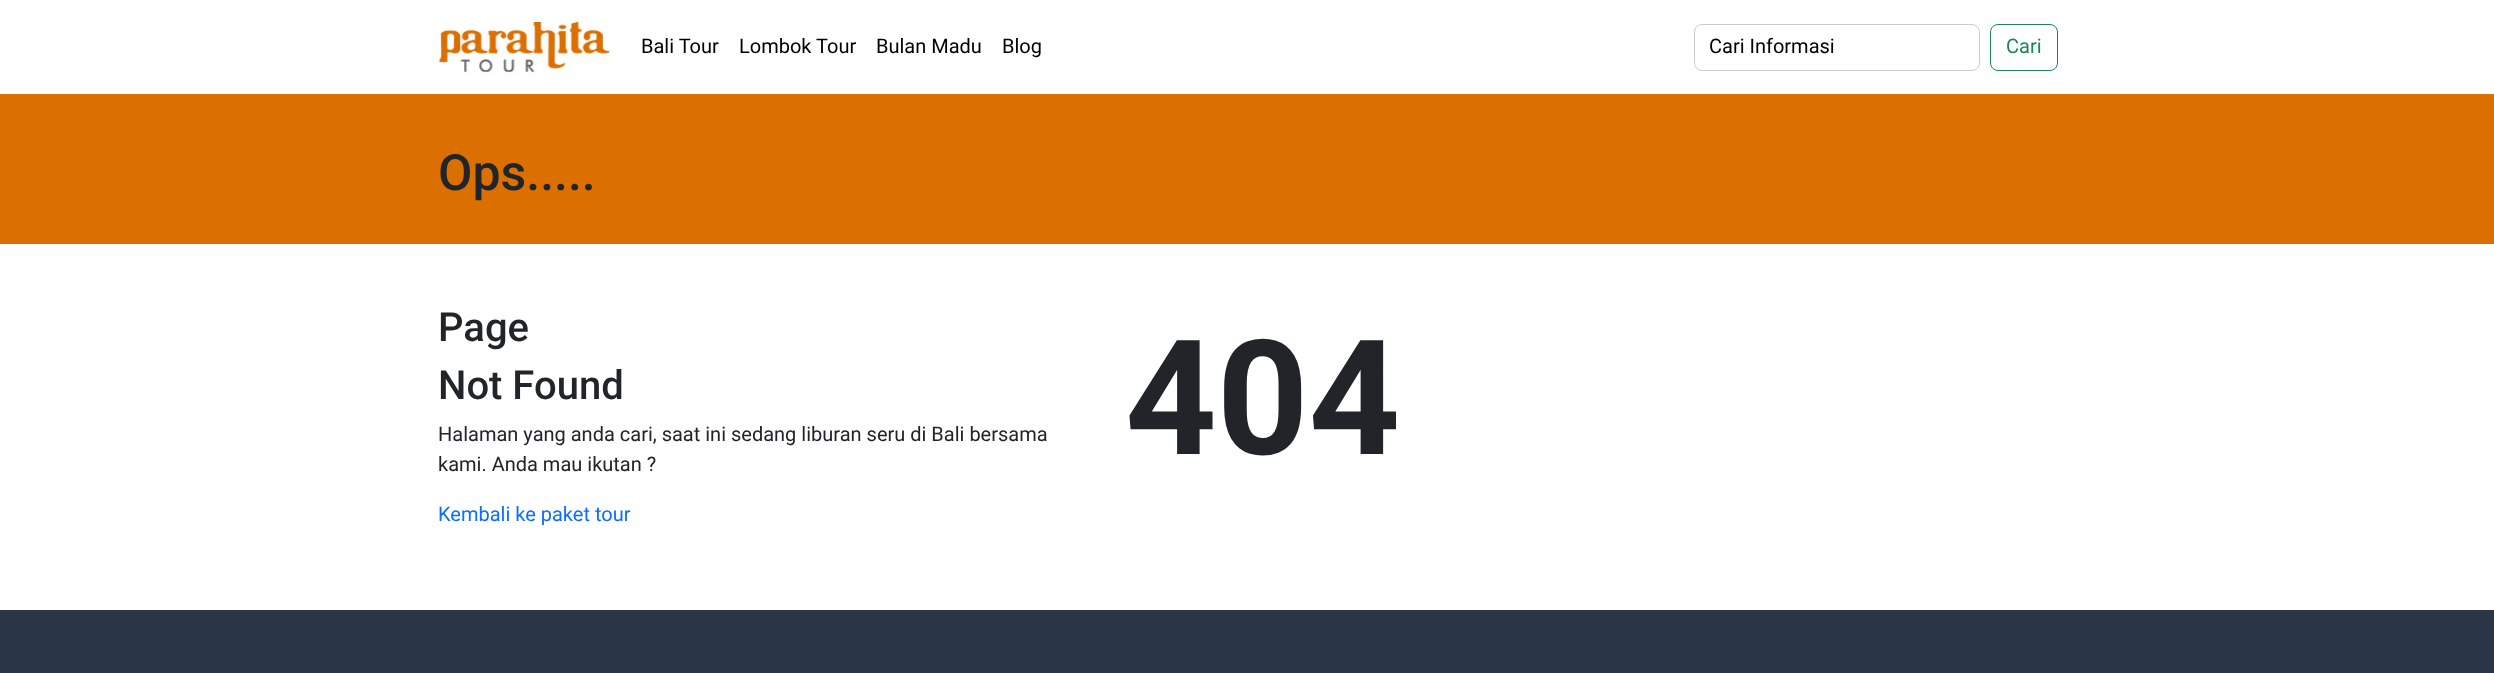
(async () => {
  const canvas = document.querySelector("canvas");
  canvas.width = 2494;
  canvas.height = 673;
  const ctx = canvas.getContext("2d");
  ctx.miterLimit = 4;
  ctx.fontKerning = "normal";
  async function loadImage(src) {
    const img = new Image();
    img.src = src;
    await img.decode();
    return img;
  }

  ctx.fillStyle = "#ffffff";
  ctx.fillRect(0, 0, 2494, 673);
  ctx.drawImage(await loadImage("img/1.png"), 437, 16, 174, 60);
  ctx.beginPath();
  ctx.roundRect(1694.5, 24.5, 285, 46, 7.5);
  ctx.strokeStyle = "#cccccc";
  ctx.stroke();
  ctx.beginPath();
  ctx.roundRect(1990.5, 24.5, 67, 46, 7.5);
  ctx.strokeStyle = "#198754";
  ctx.stroke();
  ctx.fillStyle = "#db7000";
  ctx.fillRect(0, 94, 2494, 150);
  ctx.fillStyle = "#2b3646";
  ctx.fillRect(0, 610, 2494, 63);
  ctx.font = "20px Roboto";
  ctx.fillStyle = "#000000";
  for (const [text, x, y] of [
    ["Bali Tour", 641, 53],
    ["Lombok Tour", 739, 53],
    ["Bulan Madu", 876, 53],
    ["Blog", 1002, 53],
    ["Cari Informasi", 1709, 53],
  ]) {
    ctx.fillText(text, x, y);
  }
  ctx.fillStyle = "#198754";
  ctx.fillText("Cari", 2006, 53);
  ctx.font = "500 50px Roboto";
  ctx.fillStyle = "#212529";
  ctx.fillText("Ops.....", 438, 190);
  ctx.font = "500 40px Roboto";
  ctx.fillText("Page", 438, 341);
  ctx.fillText("Not Found", 438, 399);
  ctx.font = "20px Roboto";
  ctx.fillText("Halaman yang anda cari, saat ini sedang liburan seru di Bali bersama", 438, 441);
  ctx.fillText("kami. Anda mau ikutan ?", 438, 471);
  ctx.fillStyle = "#0d6efd";
  ctx.fillText("Kembali ke paket tour", 438, 521);
  ctx.font = "bold 160px Roboto";
  ctx.fillStyle = "#212529";
  ctx.fillText("404", 1125, 454);
})();
